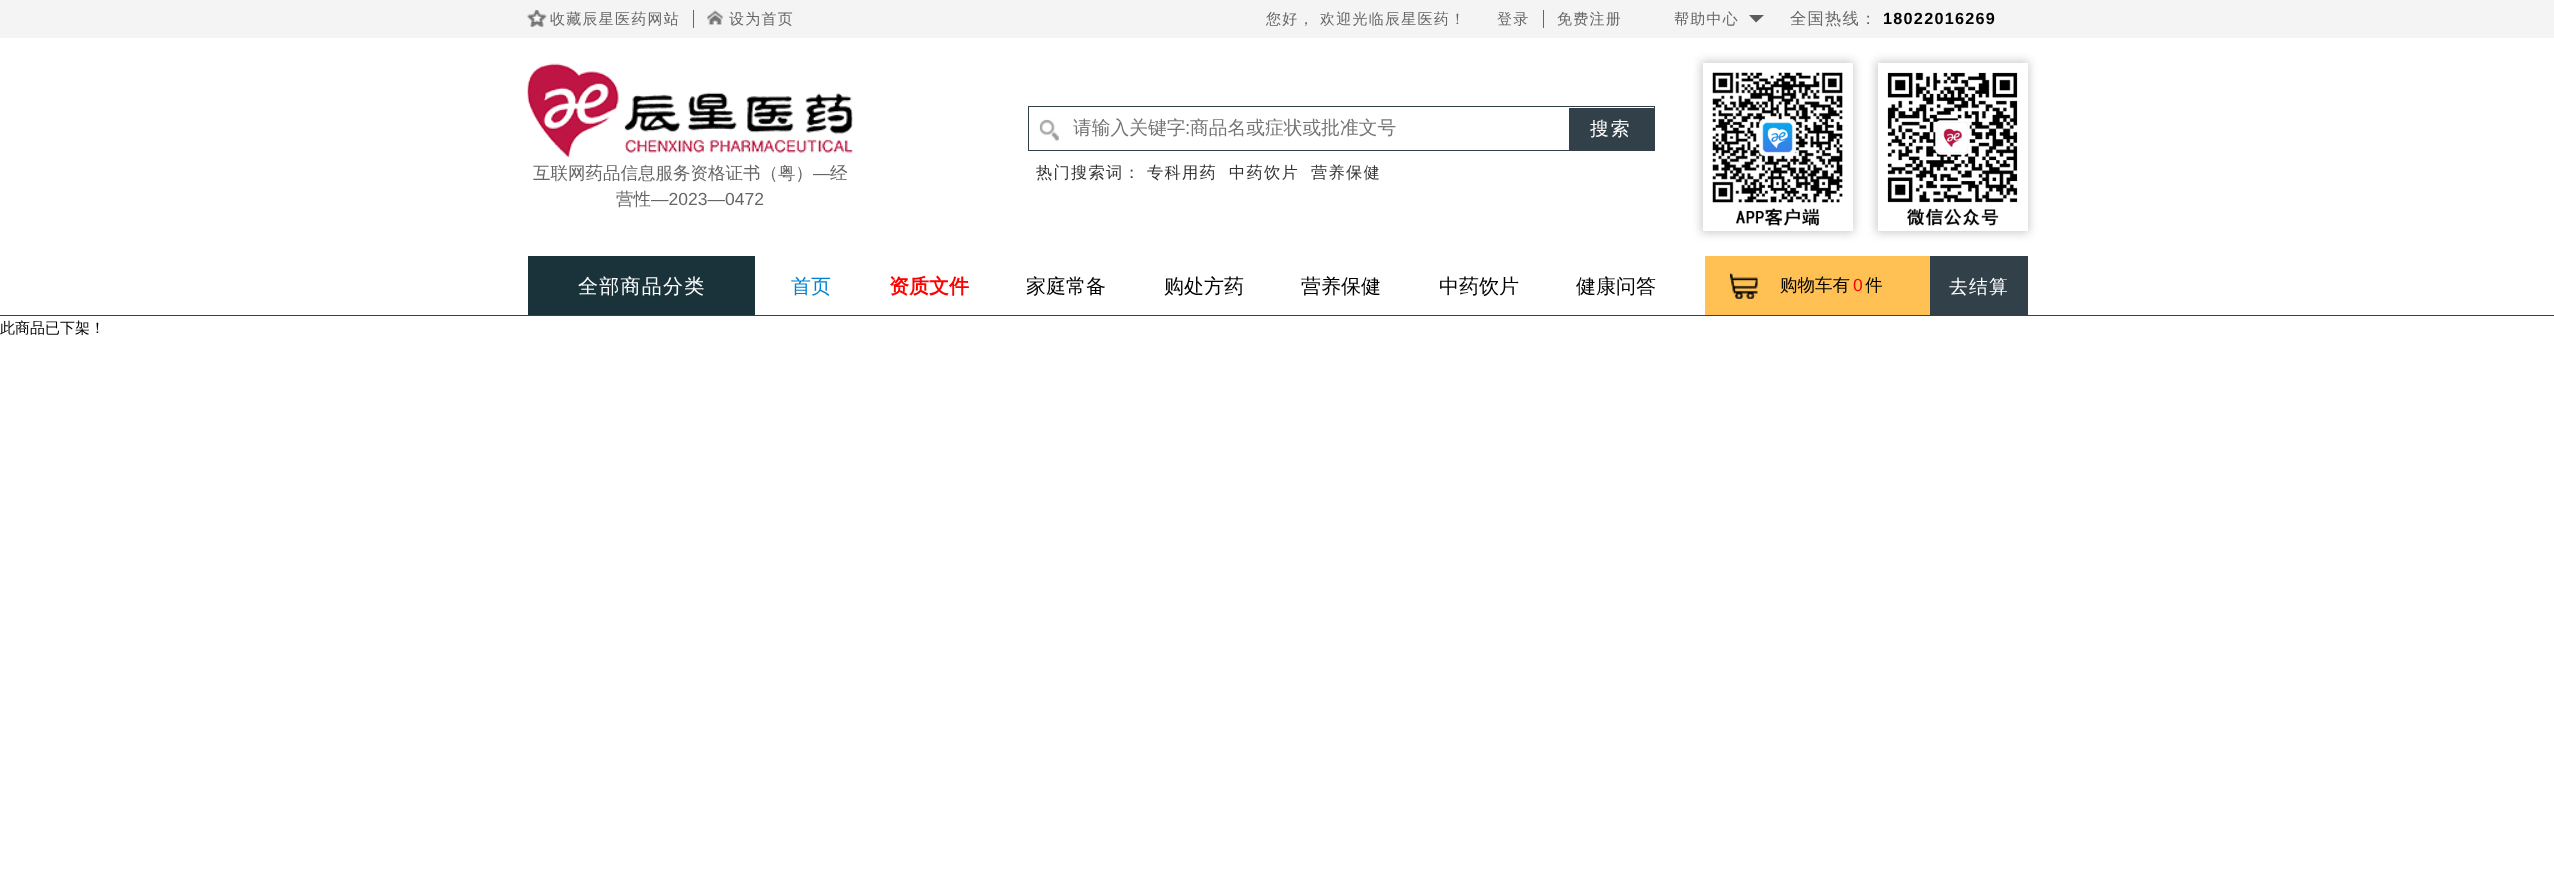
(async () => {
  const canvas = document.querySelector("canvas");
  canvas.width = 2554;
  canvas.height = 870;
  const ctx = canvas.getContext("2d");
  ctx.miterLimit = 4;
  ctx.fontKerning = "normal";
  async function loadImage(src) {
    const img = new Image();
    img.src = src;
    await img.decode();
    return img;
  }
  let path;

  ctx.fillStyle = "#ffffff";
  ctx.fillRect(0, 0, 2554, 870);
  ctx.fillStyle = "#f4f4f4";
  ctx.fillRect(0, 0, 2554, 38);
  ctx.drawImage(await loadImage("img/1.png"), 527, 10, 20, 17);
  ctx.fillStyle = "#666666";
  ctx.fillRect(693, 10, 1, 18);
  ctx.drawImage(await loadImage("img/2.png"), 707, 10, 16, 15);
  ctx.fillRect(1543, 10, 1, 18);
  ctx.fillStyle = "#5c5c5c";
  path = new Path2D("M1749 15H1764L1756 22.5Z");
  ctx.fill(path);
  ctx.drawImage(await loadImage("img/3.png"), 1039, 119, 20, 23);
  ctx.strokeStyle = "#324049";
  ctx.strokeRect(1028.5, 106.5, 626, 44);
  ctx.fillStyle = "#324049";
  ctx.fillRect(1569, 108, 85, 42);
  ctx.save();
  path = new Path2D("M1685 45H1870V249H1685ZM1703 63H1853V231H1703Z");
  ctx.clip(path, "evenodd");
  ctx.fillStyle = "#cccccc";
  ctx.filter = "blur(5px)";
  ctx.beginPath();
  ctx.rect(1701, 61, 153, 172);
  ctx.fill();
  ctx.filter = "none";
  ctx.restore();
  ctx.drawImage(await loadImage("img/4.png"), 1712, 72, 131, 154);
  ctx.save();
  path = new Path2D("M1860 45H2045V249H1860ZM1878 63H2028V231H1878Z");
  ctx.clip(path, "evenodd");
  ctx.fillStyle = "#cccccc";
  ctx.filter = "blur(5px)";
  ctx.beginPath();
  ctx.rect(1876, 61, 153, 172);
  ctx.fill();
  ctx.filter = "none";
  ctx.restore();
  ctx.drawImage(await loadImage("img/5.png"), 1887, 72, 131, 154);
  ctx.drawImage(await loadImage("img/6.png"), 527, 63, 326, 95);
  for (const [x, y, w, h, color] of [
    [0, 315, 2554, 1, "#324049"],
    [528, 256, 227, 59, "#1a333a"],
    [1705, 256, 225, 59, "#ffc154"],
  ]) {
    ctx.fillStyle = color;
    ctx.fillRect(x, y, w, h);
  }
  ctx.drawImage(await loadImage("img/7.png"), 1730, 273, 28, 26);
  ctx.fillStyle = "#324049";
  ctx.fillRect(1930, 256, 98, 59);
  ctx.letterSpacing = "1.25px";
  ctx.font = "500 15px WenQuanYi Zen Hei";
  ctx.fillStyle = "#666666";
  for (const [text, x, y] of [
    ["收藏辰星医药网站", 550, 24],
    ["设为首页", 729, 24],
    ["您好，", 1266, 24],
    ["欢迎光临辰星医药！", 1320, 24],
    ["登录", 1497, 24],
    ["免费注册", 1557, 24],
    ["帮助中心", 1674, 24],
  ]) {
    ctx.fillText(text, x, y);
  }
  ctx.font = "500 16.25px WenQuanYi Zen Hei";
  ctx.fillText("全国热线：", 1790, 24);
  ctx.font = "bold 16.25px Liberation Sans";
  ctx.fillStyle = "#000000";
  ctx.fillText("18022016269", 1883, 24);
  ctx.letterSpacing = "0px";
  ctx.font = "500 18.75px WenQuanYi Zen Hei";
  ctx.fillStyle = "#757575";
  ctx.fillText("请输入关键字", 1073, 134);
  ctx.font = "18.75px Liberation Sans";
  ctx.fillText(":", 1185, 134);
  ctx.font = "500 18.75px WenQuanYi Zen Hei";
  ctx.fillText("商品名或症状或批准文号", 1190, 134);
  ctx.letterSpacing = "2px";
  ctx.fillStyle = "#ffffff";
  ctx.fillText("搜索", 1590, 135);
  ctx.letterSpacing = "1.25px";
  ctx.font = "500 16.25px WenQuanYi Zen Hei";
  ctx.fillStyle = "#333333";
  for (const [text, x, y] of [
    ["热门搜索词：", 1036, 178],
    ["专科用药", 1147, 178],
    ["中药饮片", 1229, 178],
    ["营养保健", 1311, 178],
  ]) {
    ctx.fillText(text, x, y);
  }
  ctx.letterSpacing = "0px";
  ctx.font = "500 17.5px WenQuanYi Zen Hei";
  ctx.fillStyle = "#666666";
  ctx.fillText("互联网药品信息服务资格证书（粤）", 533, 179);
  ctx.font = "17.5px Liberation Sans";
  ctx.fillText("—", 813, 179);
  ctx.font = "500 17.5px WenQuanYi Zen Hei";
  ctx.fillText("经", 830, 179);
  ctx.fillText("营性", 616, 205);
  ctx.font = "17.5px Liberation Sans";
  ctx.fillText("—2023—0472", 651, 205);
  ctx.letterSpacing = "1.25px";
  ctx.font = "500 20px WenQuanYi Zen Hei";
  ctx.fillStyle = "#ffffff";
  ctx.fillText("全部商品分类", 578, 293);
  ctx.letterSpacing = "0px";
  ctx.fillStyle = "#0083ce";
  ctx.fillText("首页", 791, 293);
  ctx.font = "bold 20px WenQuanYi Zen Hei";
  ctx.fillStyle = "#ff0000";
  ctx.fillText("资质文件", 889, 293);
  ctx.font = "500 20px WenQuanYi Zen Hei";
  ctx.fillStyle = "#000000";
  for (const [text, x, y] of [
    ["家庭常备", 1026, 293],
    ["购处方药", 1164, 293],
    ["营养保健", 1301, 293],
    ["中药饮片", 1439, 293],
    ["健康问答", 1576, 293],
  ]) {
    ctx.fillText(text, x, y);
  }
  ctx.font = "500 17.5px WenQuanYi Zen Hei";
  ctx.fillText("购物车有", 1780, 291);
  ctx.font = "17.5px Liberation Sans";
  ctx.fillStyle = "#ff0000";
  ctx.fillText("0", 1853, 291);
  ctx.font = "500 17.5px WenQuanYi Zen Hei";
  ctx.fillStyle = "#000000";
  ctx.fillText("件", 1865, 291);
  ctx.letterSpacing = "1.25px";
  ctx.font = "500 18.75px WenQuanYi Zen Hei";
  ctx.fillStyle = "#ffffff";
  ctx.fillText("去结算", 1949, 293);
  ctx.letterSpacing = "0px";
  ctx.font = "500 15px WenQuanYi Zen Hei";
  ctx.fillStyle = "#000000";
  ctx.fillText("此商品已下架！", 0, 333);
})();
